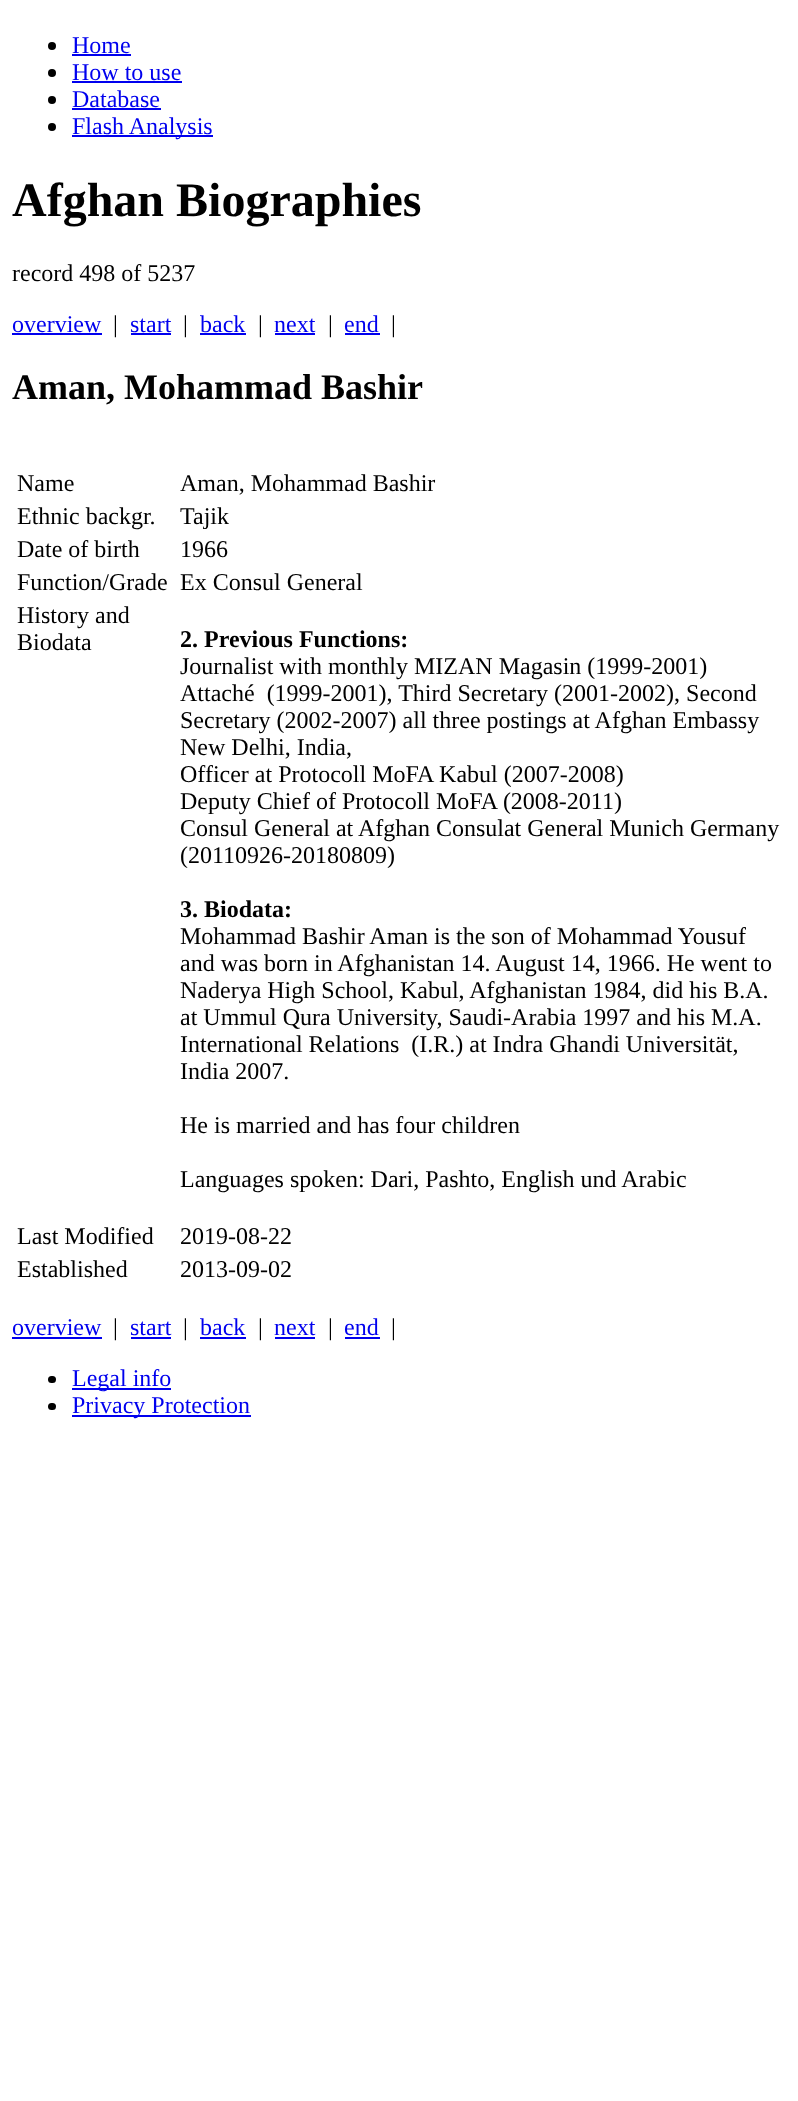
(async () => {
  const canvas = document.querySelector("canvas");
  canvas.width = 798;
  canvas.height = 2101;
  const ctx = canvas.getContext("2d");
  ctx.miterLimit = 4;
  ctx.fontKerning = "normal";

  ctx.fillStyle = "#ffffff";
  ctx.fillRect(0, 0, 798, 2101);
  ctx.fillStyle = "#000000";
  ctx.beginPath();
  ctx.arc(52, 46, 4, 0, Math.PI * 2);
  ctx.fill();
  ctx.fillStyle = "#0000ee";
  ctx.fillRect(72, 54, 59, 2);
  ctx.fillStyle = "#000000";
  ctx.beginPath();
  ctx.arc(52, 73, 4, 0, Math.PI * 2);
  ctx.fill();
  ctx.fillStyle = "#0000ee";
  ctx.fillRect(72, 81, 110, 2);
  ctx.fillStyle = "#000000";
  ctx.beginPath();
  ctx.arc(52, 100, 4, 0, Math.PI * 2);
  ctx.fill();
  ctx.fillStyle = "#0000ee";
  ctx.fillRect(72, 108, 89, 2);
  ctx.fillStyle = "#000000";
  ctx.beginPath();
  ctx.arc(52, 127, 4, 0, Math.PI * 2);
  ctx.fill();
  for (const [x, y, w, h, color] of [
    [72, 135, 141, 2, "#0000ee"],
    [12, 333, 90, 2, "#0000ee"],
    [131, 333, 40, 2, "#0000ee"],
    [200, 333, 46, 2, "#0000ee"],
    [275, 333, 40, 2, "#0000ee"],
    [345, 333, 35, 2, "#0000ee"],
    [12, 1337, 90, 2, "#0000ee"],
    [131, 1337, 40, 2, "#0000ee"],
    [200, 1337, 46, 2, "#0000ee"],
    [275, 1337, 40, 2, "#0000ee"],
    [345, 1337, 35, 2, "#0000ee"],
  ]) {
    ctx.fillStyle = color;
    ctx.fillRect(x, y, w, h);
  }
  ctx.fillStyle = "#000000";
  ctx.beginPath();
  ctx.roundRect(48, 1376, 8, 7, 3.5);
  ctx.fill();
  ctx.fillStyle = "#0000ee";
  ctx.fillRect(72, 1388, 99, 2);
  ctx.fillStyle = "#000000";
  ctx.beginPath();
  ctx.roundRect(48, 1403, 8, 7, 3.5);
  ctx.fill();
  ctx.fillStyle = "#0000ee";
  ctx.fillRect(72, 1415, 179, 2);
  ctx.font = "24px Liberation Serif";
  for (const [text, x, y] of [
    ["Home", 72, 53],
    ["How to use", 72, 80],
    ["Database", 72, 107],
    ["Flash Analysis", 72, 134],
  ]) {
    ctx.fillText(text, x, y);
  }
  ctx.font = "bold 48px Liberation Serif";
  ctx.fillStyle = "#000000";
  ctx.fillText("Afghan Biographies", 12, 216);
  ctx.font = "24px Liberation Serif";
  ctx.fillText("record 498 of 5237", 12, 281);
  ctx.fillStyle = "#0000ee";
  ctx.fillText("overview", 12, 332);
  ctx.fillStyle = "#000000";
  ctx.fillText("|", 113, 332);
  ctx.fillStyle = "#0000ee";
  ctx.fillText("start", 130, 332);
  ctx.fillStyle = "#000000";
  ctx.fillText("|", 183, 332);
  ctx.fillStyle = "#0000ee";
  ctx.fillText("back", 200, 332);
  ctx.fillStyle = "#000000";
  ctx.fillText("|", 258, 332);
  ctx.fillStyle = "#0000ee";
  ctx.fillText("next", 274, 332);
  ctx.fillStyle = "#000000";
  ctx.fillText("|", 328, 332);
  ctx.fillStyle = "#0000ee";
  ctx.fillText("end", 344, 332);
  ctx.fillStyle = "#000000";
  ctx.fillText("|", 391, 332);
  ctx.font = "bold 36px Liberation Serif";
  ctx.fillText("Aman, Mohammad Bashir", 12, 399);
  ctx.font = "24px Liberation Serif";
  for (const [text, x, y] of [
    ["Name", 17, 491],
    ["Aman, Mohammad Bashir", 180, 491],
    ["Ethnic backgr.", 17, 524],
    ["Tajik", 180, 524],
    ["Date of birth", 17, 557],
    ["1966", 180, 557],
    ["Function/Grade", 17, 590],
    ["Ex Consul General", 180, 590],
    ["History and", 17, 623],
    ["Biodata", 17, 650],
  ]) {
    ctx.fillText(text, x, y);
  }
  ctx.font = "bold 24px Liberation Serif";
  ctx.fillText("2. Previous Functions:", 180, 647);
  ctx.font = "24px Liberation Serif";
  for (const [text, x, y] of [
    ["Journalist with monthly MIZAN Magasin (1999-2001)", 180, 674],
    ["Attaché  (1999-2001), Third Secretary (2001-2002), Second", 180, 701],
    ["Secretary (2002-2007) all three postings at Afghan Embassy", 180, 728],
    ["New Delhi, India,", 180, 755],
    ["Officer at Protocoll MoFA Kabul (2007-2008)", 180, 782],
    ["Deputy Chief of Protocoll MoFA (2008-2011)", 180, 809],
    ["Consul General at Afghan Consulat General Munich Germany", 180, 836],
    ["(20110926-20180809)", 180, 863],
  ]) {
    ctx.fillText(text, x, y);
  }
  ctx.font = "bold 24px Liberation Serif";
  ctx.fillText("3. Biodata:", 180, 917);
  ctx.font = "24px Liberation Serif";
  for (const [text, x, y] of [
    ["Mohammad Bashir Aman is the son of Mohammad Yousuf", 180, 944],
    ["and was born in Afghanistan 14. August 14, 1966. He went to", 180, 971],
    ["Naderya High School, Kabul, Afghanistan 1984, did his B.A.", 180, 998],
    ["at Ummul Qura University, Saudi-Arabia 1997 and his M.A.", 180, 1025],
    ["International Relations  (I.R.) at Indra Ghandi Universität,", 180, 1052],
    ["India 2007.", 180, 1079],
    ["He is married and has four children", 180, 1133],
    ["Languages spoken: Dari, Pashto, English und Arabic", 180, 1187],
    ["Last Modified", 17, 1244],
    ["2019-08-22", 180, 1244],
    ["Established", 17, 1277],
    ["2013-09-02", 180, 1277],
  ]) {
    ctx.fillText(text, x, y);
  }
  ctx.fillStyle = "#0000ee";
  ctx.fillText("overview", 12, 1335);
  ctx.fillStyle = "#000000";
  ctx.fillText("|", 113, 1335);
  ctx.fillStyle = "#0000ee";
  ctx.fillText("start", 130, 1335);
  ctx.fillStyle = "#000000";
  ctx.fillText("|", 183, 1335);
  ctx.fillStyle = "#0000ee";
  ctx.fillText("back", 200, 1335);
  ctx.fillStyle = "#000000";
  ctx.fillText("|", 258, 1335);
  ctx.fillStyle = "#0000ee";
  ctx.fillText("next", 274, 1335);
  ctx.fillStyle = "#000000";
  ctx.fillText("|", 328, 1335);
  ctx.fillStyle = "#0000ee";
  ctx.fillText("end", 344, 1335);
  ctx.fillStyle = "#000000";
  ctx.fillText("|", 391, 1335);
  ctx.fillStyle = "#0000ee";
  ctx.fillText("Legal info", 72, 1386);
  ctx.fillText("Privacy Protection", 72, 1413);
})();
